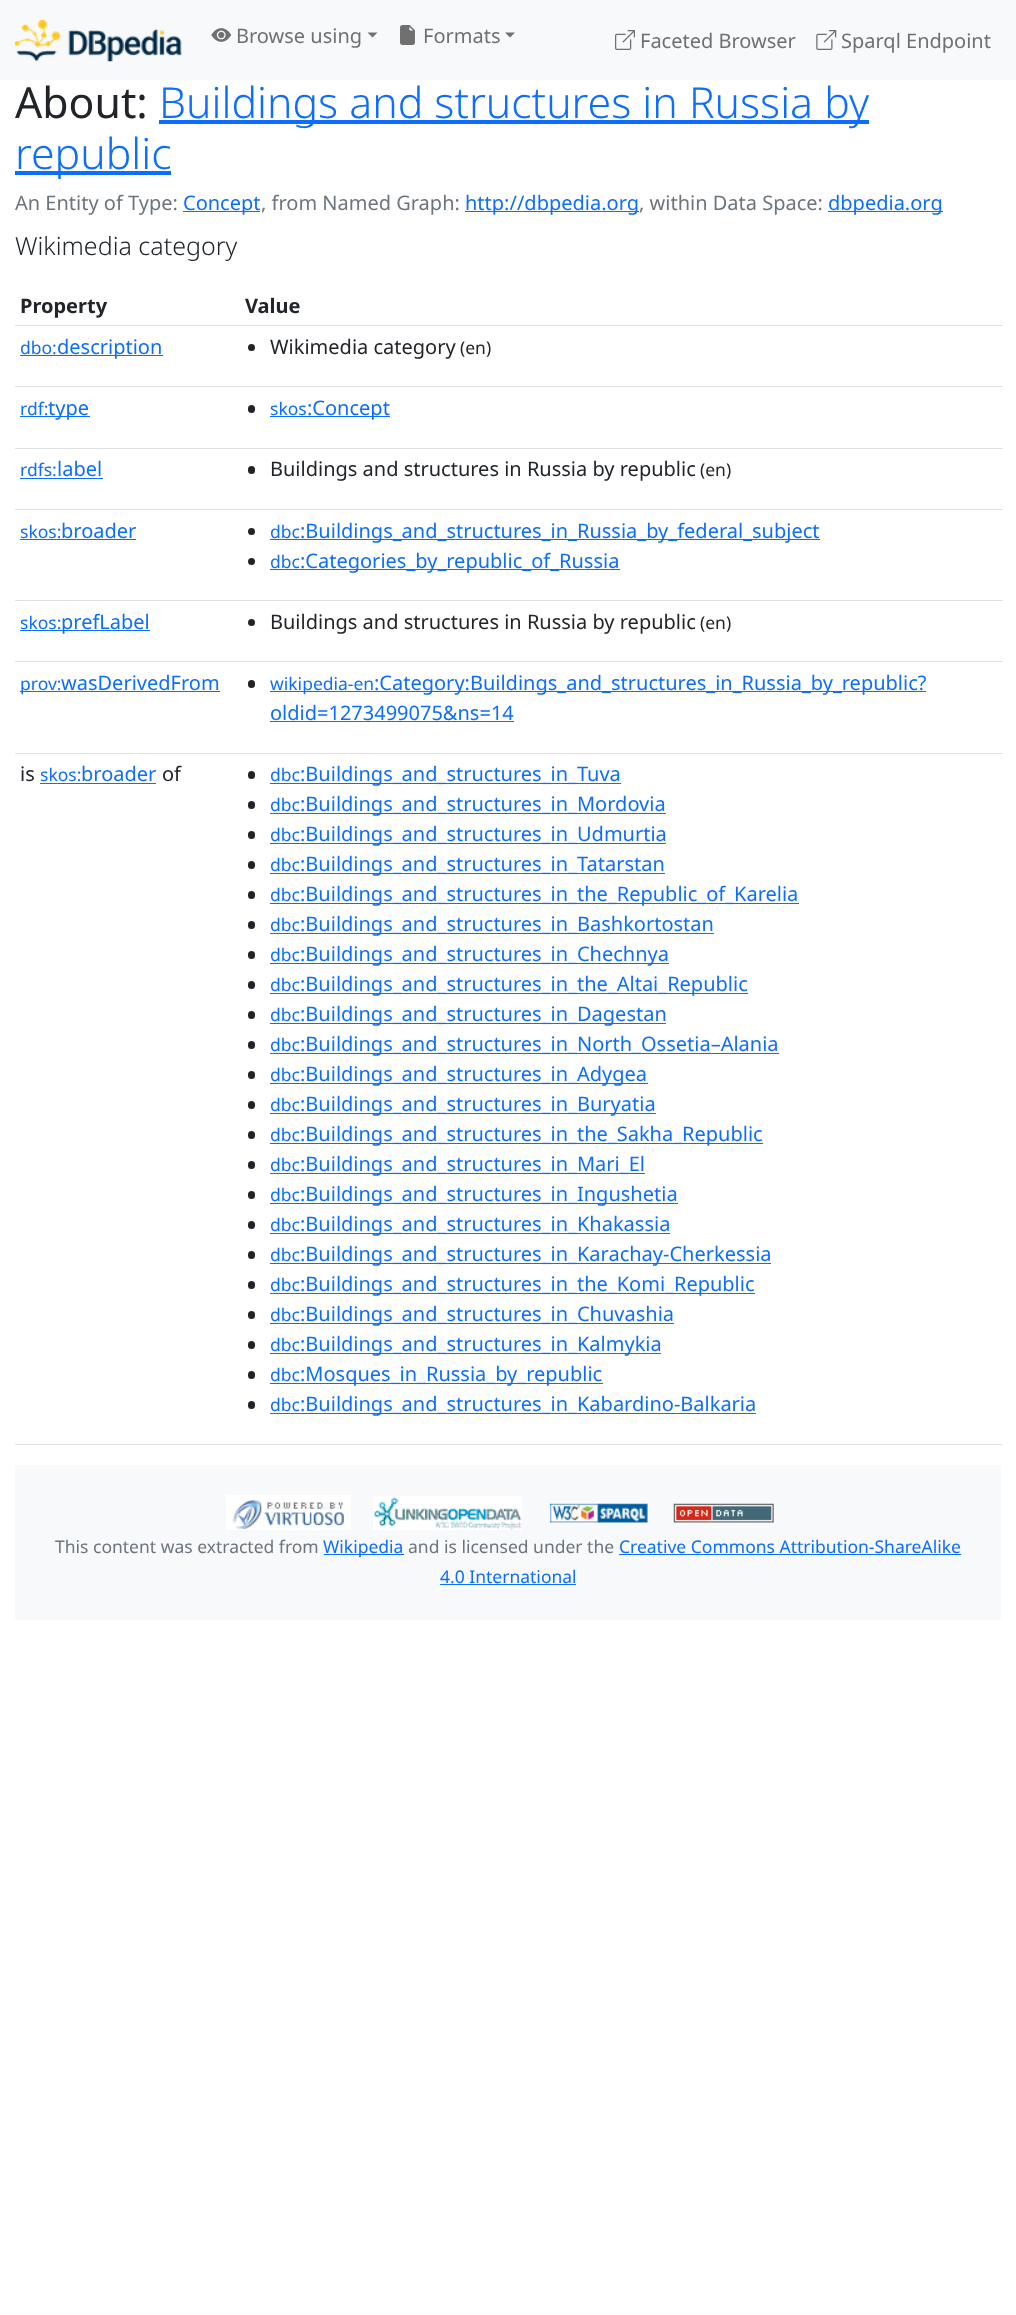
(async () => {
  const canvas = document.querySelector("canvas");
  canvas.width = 1016;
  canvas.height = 2315;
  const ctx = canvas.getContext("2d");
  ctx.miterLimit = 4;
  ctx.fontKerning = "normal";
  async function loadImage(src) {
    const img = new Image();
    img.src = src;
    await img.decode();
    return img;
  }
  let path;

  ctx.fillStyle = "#ffffff";
  ctx.fillRect(0, 0, 1016, 2315);
  ctx.fillStyle = "#f8f9fa";
  ctx.fillRect(0, 0, 1016, 80);
  ctx.drawImage(await loadImage("img/1.png"), 15, 19, 167, 43);
  ctx.drawImage(await loadImage("img/2.png"), 211, 28, 21, 14);
  ctx.fillStyle = "#707071";
  path = new Path2D("M367.5 32.5H377.5L372.5 37.5Z");
  ctx.fill(path);
  ctx.drawImage(await loadImage("img/3.png"), 400, 25, 15, 20);
  path = new Path2D("M505 32.5H515L510 37.5Z");
  ctx.fill(path);
  ctx.drawImage(await loadImage("img/4.png"), 615, 30, 20, 20);
  ctx.drawImage(await loadImage("img/5.png"), 816, 30, 21, 20);
  for (const [x, y, w, h, color] of [
    [159, 120, 710, 4, "#0d6efd"],
    [15, 171, 156, 4, "#0d6efd"],
    [183, 211, 77, 1, "#0d6efd"],
    [465, 211, 174, 1, "#0d6efd"],
    [828, 211, 115, 1, "#0d6efd"],
    [15, 325, 988, 1, "#dee2e6"],
    [20, 355, 143, 1, "#0d6efd"],
    [15, 386, 988, 1, "#dee2e6"],
  ]) {
    ctx.fillStyle = color;
    ctx.fillRect(x, y, w, h);
  }
  ctx.fillStyle = "#212529";
  ctx.beginPath();
  ctx.arc(251.5, 347.5, 3.5, 0, Math.PI * 2);
  ctx.fill();
  ctx.fillStyle = "#0d6efd";
  ctx.fillRect(20, 416, 70, 1);
  ctx.fillStyle = "#dee2e6";
  ctx.fillRect(15, 448, 988, 1);
  ctx.fillStyle = "#212529";
  ctx.beginPath();
  ctx.roundRect(248, 405, 7, 8, 3.5);
  ctx.fill();
  for (const [x, y, w, h, color] of [
    [270, 416, 120, 1, "#0d6efd"],
    [20, 478, 83, 1, "#0d6efd"],
    [15, 509, 988, 1, "#dee2e6"],
  ]) {
    ctx.fillStyle = color;
    ctx.fillRect(x, y, w, h);
  }
  ctx.fillStyle = "#212529";
  ctx.beginPath();
  ctx.roundRect(248, 466, 7, 8, 3.5);
  ctx.fill();
  ctx.fillStyle = "#0d6efd";
  ctx.fillRect(20, 539, 116, 1);
  ctx.fillStyle = "#dee2e6";
  ctx.fillRect(15, 600, 988, 1);
  ctx.fillStyle = "#212529";
  ctx.beginPath();
  ctx.arc(251.5, 531.5, 3.5, 0, Math.PI * 2);
  ctx.fill();
  ctx.fillStyle = "#0d6efd";
  ctx.fillRect(270, 539, 550, 1);
  ctx.fillStyle = "#212529";
  ctx.beginPath();
  ctx.arc(251.5, 561.5, 3.5, 0, Math.PI * 2);
  ctx.fill();
  for (const [x, y, w, h, color] of [
    [270, 569, 350, 1, "#0d6efd"],
    [20, 630, 130, 1, "#0d6efd"],
    [15, 661, 988, 1, "#dee2e6"],
  ]) {
    ctx.fillStyle = color;
    ctx.fillRect(x, y, w, h);
  }
  ctx.fillStyle = "#212529";
  ctx.beginPath();
  ctx.arc(251.5, 622.5, 3.5, 0, Math.PI * 2);
  ctx.fill();
  ctx.fillStyle = "#0d6efd";
  ctx.fillRect(20, 691, 200, 1);
  ctx.fillStyle = "#dee2e6";
  ctx.fillRect(15, 753, 988, 1);
  ctx.fillStyle = "#212529";
  ctx.beginPath();
  ctx.roundRect(248, 680, 7, 8, 3.5);
  ctx.fill();
  for (const [x, y, w, h, color] of [
    [270, 691, 656, 1, "#0d6efd"],
    [270, 721, 244, 1, "#0d6efd"],
    [40, 783, 116, 1, "#0d6efd"],
    [15, 1444, 988, 1, "#dee2e6"],
  ]) {
    ctx.fillStyle = color;
    ctx.fillRect(x, y, w, h);
  }
  ctx.fillStyle = "#212529";
  ctx.beginPath();
  ctx.roundRect(248, 771, 7, 8, 3.5);
  ctx.fill();
  ctx.fillStyle = "#0d6efd";
  ctx.fillRect(270, 783, 351, 1);
  ctx.fillStyle = "#212529";
  ctx.beginPath();
  ctx.roundRect(248, 801, 7, 8, 3.5);
  ctx.fill();
  ctx.fillStyle = "#0d6efd";
  ctx.fillRect(270, 813, 396, 1);
  ctx.fillStyle = "#212529";
  ctx.beginPath();
  ctx.roundRect(248, 831, 7, 8, 3.5);
  ctx.fill();
  ctx.fillStyle = "#0d6efd";
  ctx.fillRect(270, 843, 396, 1);
  ctx.fillStyle = "#212529";
  ctx.beginPath();
  ctx.roundRect(248, 861, 7, 8, 3.5);
  ctx.fill();
  ctx.fillStyle = "#0d6efd";
  ctx.fillRect(270, 873, 395, 1);
  ctx.fillStyle = "#212529";
  ctx.beginPath();
  ctx.roundRect(248, 891, 7, 8, 3.5);
  ctx.fill();
  ctx.fillStyle = "#0d6efd";
  ctx.fillRect(270, 903, 529, 1);
  ctx.fillStyle = "#212529";
  ctx.beginPath();
  ctx.roundRect(248, 921, 7, 8, 3.5);
  ctx.fill();
  ctx.fillStyle = "#0d6efd";
  ctx.fillRect(270, 933, 444, 1);
  ctx.fillStyle = "#212529";
  ctx.beginPath();
  ctx.roundRect(248, 951, 7, 8, 3.5);
  ctx.fill();
  ctx.fillStyle = "#0d6efd";
  ctx.fillRect(270, 963, 399, 1);
  ctx.fillStyle = "#212529";
  ctx.beginPath();
  ctx.roundRect(248, 981, 7, 8, 3.5);
  ctx.fill();
  ctx.fillStyle = "#0d6efd";
  ctx.fillRect(270, 993, 478, 1);
  ctx.fillStyle = "#212529";
  ctx.beginPath();
  ctx.roundRect(248, 1011, 7, 8, 3.5);
  ctx.fill();
  ctx.fillStyle = "#0d6efd";
  ctx.fillRect(270, 1023, 396, 1);
  ctx.fillStyle = "#212529";
  ctx.beginPath();
  ctx.roundRect(248, 1041, 7, 8, 3.5);
  ctx.fill();
  ctx.fillStyle = "#0d6efd";
  ctx.fillRect(270, 1053, 509, 1);
  ctx.fillStyle = "#212529";
  ctx.beginPath();
  ctx.roundRect(248, 1071, 7, 8, 3.5);
  ctx.fill();
  ctx.fillStyle = "#0d6efd";
  ctx.fillRect(270, 1083, 378, 1);
  ctx.fillStyle = "#212529";
  ctx.beginPath();
  ctx.roundRect(248, 1101, 7, 8, 3.5);
  ctx.fill();
  ctx.fillStyle = "#0d6efd";
  ctx.fillRect(270, 1113, 386, 1);
  ctx.fillStyle = "#212529";
  ctx.beginPath();
  ctx.roundRect(248, 1131, 7, 8, 3.5);
  ctx.fill();
  ctx.fillStyle = "#0d6efd";
  ctx.fillRect(270, 1143, 493, 1);
  ctx.fillStyle = "#212529";
  ctx.beginPath();
  ctx.roundRect(248, 1161, 7, 8, 3.5);
  ctx.fill();
  ctx.fillStyle = "#0d6efd";
  ctx.fillRect(270, 1173, 375, 1);
  ctx.fillStyle = "#212529";
  ctx.beginPath();
  ctx.roundRect(248, 1191, 7, 8, 3.5);
  ctx.fill();
  ctx.fillStyle = "#0d6efd";
  ctx.fillRect(270, 1203, 408, 1);
  ctx.fillStyle = "#212529";
  ctx.beginPath();
  ctx.roundRect(248, 1221, 7, 8, 3.5);
  ctx.fill();
  ctx.fillStyle = "#0d6efd";
  ctx.fillRect(270, 1233, 400, 1);
  ctx.fillStyle = "#212529";
  ctx.beginPath();
  ctx.roundRect(248, 1251, 7, 8, 3.5);
  ctx.fill();
  ctx.fillStyle = "#0d6efd";
  ctx.fillRect(270, 1263, 501, 1);
  ctx.fillStyle = "#212529";
  ctx.beginPath();
  ctx.roundRect(248, 1281, 7, 8, 3.5);
  ctx.fill();
  ctx.fillStyle = "#0d6efd";
  ctx.fillRect(270, 1293, 485, 1);
  ctx.fillStyle = "#212529";
  ctx.beginPath();
  ctx.roundRect(248, 1311, 7, 8, 3.5);
  ctx.fill();
  ctx.fillStyle = "#0d6efd";
  ctx.fillRect(270, 1323, 404, 1);
  ctx.fillStyle = "#212529";
  ctx.beginPath();
  ctx.roundRect(248, 1341, 7, 8, 3.5);
  ctx.fill();
  ctx.fillStyle = "#0d6efd";
  ctx.fillRect(270, 1353, 391, 1);
  ctx.fillStyle = "#212529";
  ctx.beginPath();
  ctx.roundRect(248, 1371, 7, 8, 3.5);
  ctx.fill();
  ctx.fillStyle = "#0d6efd";
  ctx.fillRect(270, 1383, 333, 1);
  ctx.fillStyle = "#212529";
  ctx.beginPath();
  ctx.roundRect(248, 1401, 7, 8, 3.5);
  ctx.fill();
  ctx.fillStyle = "#0d6efd";
  ctx.fillRect(270, 1413, 486, 1);
  ctx.fillStyle = "#f8f9fa";
  ctx.fillRect(15, 1465, 986, 155);
  ctx.drawImage(await loadImage("img/6.png"), 226, 1495, 125, 35);
  ctx.drawImage(await loadImage("img/7.png"), 373, 1496, 149, 34);
  ctx.drawImage(await loadImage("img/8.png"), 549, 1503, 100, 20);
  ctx.drawImage(await loadImage("img/9.png"), 673, 1503, 101, 20);
  for (const [x, y, w, h, color] of [
    [324, 1554, 80, 1, "#0d6efd"],
    [619, 1554, 342, 1, "#0d6efd"],
    [440, 1584, 136, 1, "#0d6efd"],
  ]) {
    ctx.fillStyle = color;
    ctx.fillRect(x, y, w, h);
  }
  ctx.font = "20px Noto Sans";
  ctx.fillStyle = "#707071";
  for (const [text, x, y] of [
    ["Browse using", 236, 43],
    ["Formats", 423, 43],
    ["Faceted Browser", 640, 48],
    ["Sparql Endpoint", 841, 48],
  ]) {
    ctx.fillText(text, x, y);
  }
  ctx.font = "42.75px Noto Sans";
  ctx.fillStyle = "#212529";
  ctx.fillText("About:", 15, 118);
  ctx.font = "300 42.75px Noto Sans";
  ctx.fillStyle = "#0d6efd";
  ctx.fillText("Buildings and structures in Russia by", 159, 118);
  ctx.fillText("republic", 15, 169);
  ctx.font = "20px Noto Sans";
  ctx.fillStyle = "#6c757d";
  ctx.fillText("An Entity of Type:", 15, 210);
  ctx.fillStyle = "#0d6efd";
  ctx.fillText("Concept", 183, 210);
  ctx.fillStyle = "#6c757d";
  ctx.fillText(", from Named Graph:", 261, 210);
  ctx.fillStyle = "#0d6efd";
  ctx.fillText("http://dbpedia.org", 465, 210);
  ctx.fillStyle = "#6c757d";
  ctx.fillText(", within Data Space:", 639, 210);
  ctx.fillStyle = "#0d6efd";
  ctx.fillText("dbpedia.org", 828, 210);
  ctx.font = "300 25px Noto Sans";
  ctx.fillStyle = "#212529";
  ctx.fillText("Wikimedia category", 15, 255);
  ctx.font = "bold 20px Noto Sans";
  ctx.fillText("Property", 20, 313);
  ctx.fillText("Value", 245, 313);
  ctx.font = "17.5px Noto Sans";
  ctx.fillStyle = "#0d6efd";
  ctx.fillText("dbo:", 20, 354);
  ctx.font = "20px Noto Sans";
  ctx.fillText("description", 57, 354);
  ctx.fillStyle = "#212529";
  ctx.fillText("Wikimedia category", 270, 354);
  ctx.font = "17.5px Noto Sans";
  ctx.fillText("(en)", 460, 354);
  ctx.fillStyle = "#0d6efd";
  ctx.fillText("rdf:", 20, 415);
  ctx.font = "20px Noto Sans";
  ctx.fillText("type", 48, 415);
  ctx.font = "17.5px Noto Sans";
  ctx.fillText("skos", 270, 415);
  ctx.font = "20px Noto Sans";
  ctx.fillText(":Concept", 307, 415);
  ctx.font = "17.5px Noto Sans";
  ctx.fillText("rdfs:", 20, 476);
  ctx.font = "20px Noto Sans";
  ctx.fillText("label", 57, 476);
  ctx.fillStyle = "#212529";
  ctx.fillText("Buildings and structures in Russia by republic", 270, 476);
  ctx.font = "17.5px Noto Sans";
  ctx.fillText("(en)", 700, 476);
  ctx.fillStyle = "#0d6efd";
  ctx.fillText("skos:", 20, 538);
  ctx.font = "20px Noto Sans";
  ctx.fillText("broader", 61, 538);
  ctx.font = "17.5px Noto Sans";
  ctx.fillText("dbc", 270, 538);
  ctx.font = "20px Noto Sans";
  ctx.fillText(":Buildings_and_structures_in_Russia_by_federal_subject", 300, 538);
  ctx.font = "17.5px Noto Sans";
  ctx.fillText("dbc", 270, 568);
  ctx.font = "20px Noto Sans";
  ctx.fillText(":Categories_by_republic_of_Russia", 300, 568);
  ctx.font = "17.5px Noto Sans";
  ctx.fillText("skos:", 20, 629);
  ctx.font = "20px Noto Sans";
  ctx.fillText("prefLabel", 61, 629);
  ctx.fillStyle = "#212529";
  ctx.fillText("Buildings and structures in Russia by republic", 270, 629);
  ctx.font = "17.5px Noto Sans";
  ctx.fillText("(en)", 700, 629);
  ctx.fillStyle = "#0d6efd";
  ctx.fillText("prov:", 20, 690);
  ctx.font = "20px Noto Sans";
  ctx.fillText("wasDerivedFrom", 61, 690);
  ctx.font = "17.5px Noto Sans";
  ctx.fillText("wikipedia-en", 270, 690);
  ctx.font = "20px Noto Sans";
  ctx.fillText(":Category:Buildings_and_structures_in_Russia_by_republic?", 374, 690);
  ctx.fillText("oldid=1273499075&ns=14", 270, 720);
  ctx.fillStyle = "#212529";
  ctx.fillText("is", 20, 781);
  ctx.font = "17.5px Noto Sans";
  ctx.fillStyle = "#0d6efd";
  ctx.fillText("skos:", 40, 781);
  ctx.font = "20px Noto Sans";
  ctx.fillText("broader", 81, 781);
  ctx.fillStyle = "#212529";
  ctx.fillText("of", 162, 781);
  ctx.font = "17.5px Noto Sans";
  ctx.fillStyle = "#0d6efd";
  ctx.fillText("dbc", 270, 781);
  ctx.font = "20px Noto Sans";
  ctx.fillText(":Buildings_and_structures_in_Tuva", 300, 781);
  ctx.font = "17.5px Noto Sans";
  ctx.fillText("dbc", 270, 811);
  ctx.font = "20px Noto Sans";
  ctx.fillText(":Buildings_and_structures_in_Mordovia", 300, 811);
  ctx.font = "17.5px Noto Sans";
  ctx.fillText("dbc", 270, 841);
  ctx.font = "20px Noto Sans";
  ctx.fillText(":Buildings_and_structures_in_Udmurtia", 300, 841);
  ctx.font = "17.5px Noto Sans";
  ctx.fillText("dbc", 270, 871);
  ctx.font = "20px Noto Sans";
  ctx.fillText(":Buildings_and_structures_in_Tatarstan", 300, 871);
  ctx.font = "17.5px Noto Sans";
  ctx.fillText("dbc", 270, 901);
  ctx.font = "20px Noto Sans";
  ctx.fillText(":Buildings_and_structures_in_the_Republic_of_Karelia", 300, 901);
  ctx.font = "17.5px Noto Sans";
  ctx.fillText("dbc", 270, 931);
  ctx.font = "20px Noto Sans";
  ctx.fillText(":Buildings_and_structures_in_Bashkortostan", 300, 931);
  ctx.font = "17.5px Noto Sans";
  ctx.fillText("dbc", 270, 961);
  ctx.font = "20px Noto Sans";
  ctx.fillText(":Buildings_and_structures_in_Chechnya", 300, 961);
  ctx.font = "17.5px Noto Sans";
  ctx.fillText("dbc", 270, 991);
  ctx.font = "20px Noto Sans";
  ctx.fillText(":Buildings_and_structures_in_the_Altai_Republic", 300, 991);
  ctx.font = "17.5px Noto Sans";
  ctx.fillText("dbc", 270, 1021);
  ctx.font = "20px Noto Sans";
  ctx.fillText(":Buildings_and_structures_in_Dagestan", 300, 1021);
  ctx.font = "17.5px Noto Sans";
  ctx.fillText("dbc", 270, 1051);
  ctx.font = "20px Noto Sans";
  ctx.fillText(":Buildings_and_structures_in_North_Ossetia–Alania", 300, 1051);
  ctx.font = "17.5px Noto Sans";
  ctx.fillText("dbc", 270, 1081);
  ctx.font = "20px Noto Sans";
  ctx.fillText(":Buildings_and_structures_in_Adygea", 300, 1081);
  ctx.font = "17.5px Noto Sans";
  ctx.fillText("dbc", 270, 1111);
  ctx.font = "20px Noto Sans";
  ctx.fillText(":Buildings_and_structures_in_Buryatia", 300, 1111);
  ctx.font = "17.5px Noto Sans";
  ctx.fillText("dbc", 270, 1141);
  ctx.font = "20px Noto Sans";
  ctx.fillText(":Buildings_and_structures_in_the_Sakha_Republic", 300, 1141);
  ctx.font = "17.5px Noto Sans";
  ctx.fillText("dbc", 270, 1171);
  ctx.font = "20px Noto Sans";
  ctx.fillText(":Buildings_and_structures_in_Mari_El", 300, 1171);
  ctx.font = "17.5px Noto Sans";
  ctx.fillText("dbc", 270, 1201);
  ctx.font = "20px Noto Sans";
  ctx.fillText(":Buildings_and_structures_in_Ingushetia", 300, 1201);
  ctx.font = "17.5px Noto Sans";
  ctx.fillText("dbc", 270, 1231);
  ctx.font = "20px Noto Sans";
  ctx.fillText(":Buildings_and_structures_in_Khakassia", 300, 1231);
  ctx.font = "17.5px Noto Sans";
  ctx.fillText("dbc", 270, 1261);
  ctx.font = "20px Noto Sans";
  ctx.fillText(":Buildings_and_structures_in_Karachay-Cherkessia", 300, 1261);
  ctx.font = "17.5px Noto Sans";
  ctx.fillText("dbc", 270, 1291);
  ctx.font = "20px Noto Sans";
  ctx.fillText(":Buildings_and_structures_in_the_Komi_Republic", 300, 1291);
  ctx.font = "17.5px Noto Sans";
  ctx.fillText("dbc", 270, 1321);
  ctx.font = "20px Noto Sans";
  ctx.fillText(":Buildings_and_structures_in_Chuvashia", 300, 1321);
  ctx.font = "17.5px Noto Sans";
  ctx.fillText("dbc", 270, 1351);
  ctx.font = "20px Noto Sans";
  ctx.fillText(":Buildings_and_structures_in_Kalmykia", 300, 1351);
  ctx.font = "17.5px Noto Sans";
  ctx.fillText("dbc", 270, 1381);
  ctx.font = "20px Noto Sans";
  ctx.fillText(":Mosques_in_Russia_by_republic", 300, 1381);
  ctx.font = "17.5px Noto Sans";
  ctx.fillText("dbc", 270, 1411);
  ctx.font = "20px Noto Sans";
  ctx.fillText(":Buildings_and_structures_in_Kabardino-Balkaria", 300, 1411);
  ctx.font = "17.5px Noto Sans";
  ctx.fillStyle = "#6c757d";
  ctx.fillText("This content was extracted from", 55, 1553);
  ctx.fillStyle = "#0d6efd";
  ctx.fillText("Wikipedia", 323, 1553);
  ctx.fillStyle = "#6c757d";
  ctx.fillText("and is licensed under the", 408, 1553);
  ctx.fillStyle = "#0d6efd";
  ctx.fillText("Creative Commons Attribution-ShareAlike", 619, 1553);
  ctx.fillText("4.0 International", 440, 1583);
})();
